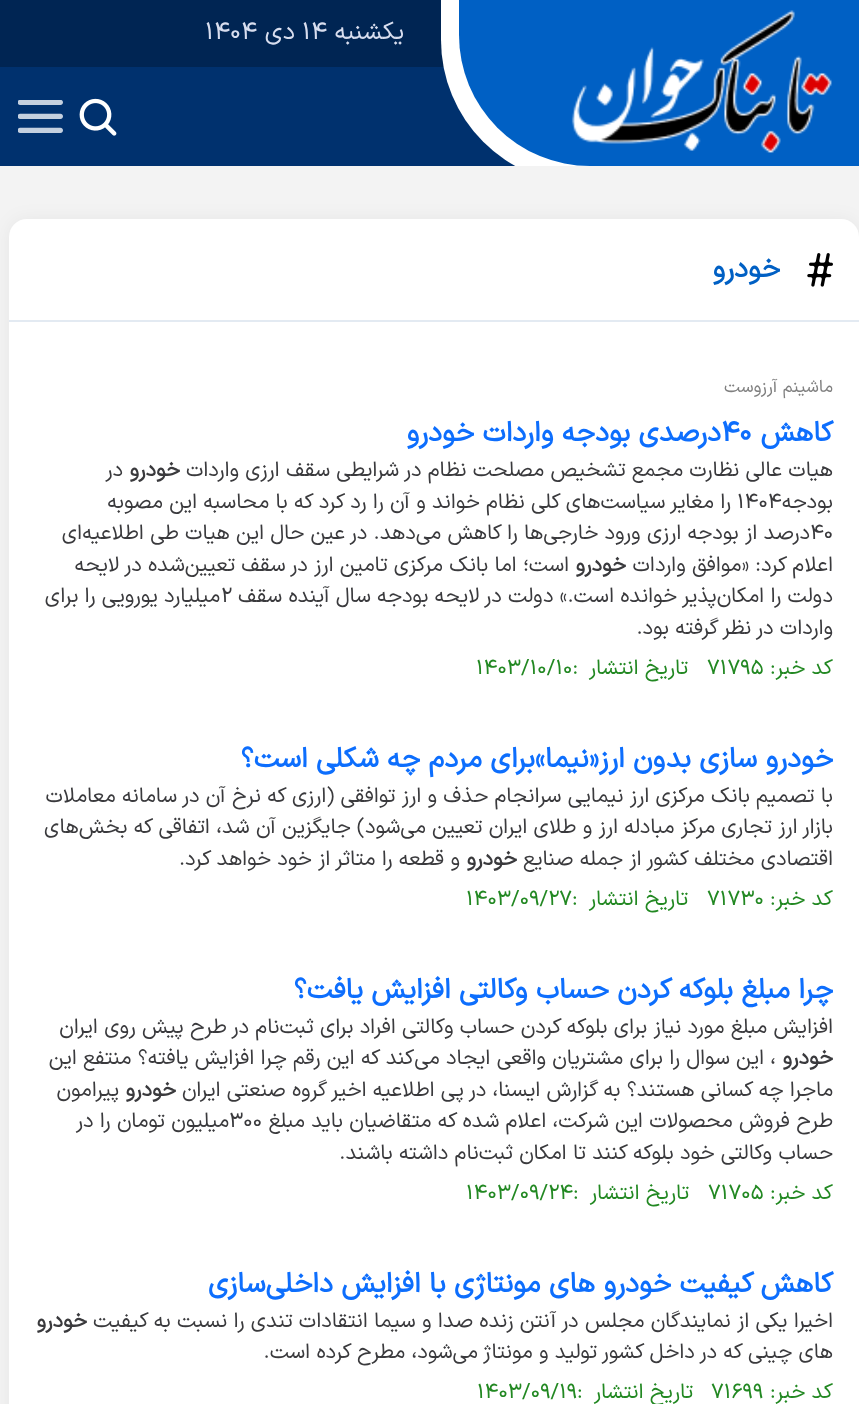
(async () => {
  const canvas = document.querySelector("canvas");
  canvas.width = 859;
  canvas.height = 1404;
  const ctx = canvas.getContext("2d");
  ctx.miterLimit = 4;
  ctx.fontKerning = "normal";
  async function loadImage(src) {
    const img = new Image();
    img.src = src;
    await img.decode();
    return img;
  }

  ctx.fillStyle = "#f3f3f3";
  ctx.fillRect(0, 0, 859, 1404);
  ctx.fillStyle = "#00316e";
  ctx.fillRect(0, 67, 516, 99);
  ctx.fillStyle = "#002553";
  ctx.fillRect(0, 0, 444, 67);
  ctx.save();
  ctx.beginPath();
  ctx.rect(439, 0, 420, 166);
  ctx.clip();
  ctx.fillStyle = "#ffffff";
  ctx.beginPath();
  ctx.roundRect(441, 0, 418, 184, [0, 0, 0, 144]);
  ctx.fill();
  ctx.restore();
  ctx.fillStyle = "#0060c4";
  ctx.beginPath();
  ctx.roundRect(459, 0, 400, 166, [0, 0, 0, 131]);
  ctx.fill();
  ctx.drawImage(await loadImage("img/1.png"), 571, 10, 261, 143);
  ctx.drawImage(await loadImage("img/2.png"), 79, 98, 38, 38);
  ctx.drawImage(await loadImage("img/3.png"), 18, 100, 45, 33);
  ctx.fillStyle = "rgba(0, 0, 0, 0.05)";
  ctx.filter = "blur(9px)";
  ctx.beginPath();
  ctx.roundRect(9, 219, 850, 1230, 18);
  ctx.fill();
  ctx.filter = "none";
  ctx.fillStyle = "#ffffff";
  ctx.beginPath();
  ctx.roundRect(9, 219, 850, 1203, 18);
  ctx.fill();
  ctx.fillStyle = "#e3eaf2";
  ctx.fillRect(9, 320, 850, 2);
  ctx.drawImage(await loadImage("img/4.png"), 807, 253, 26, 34);
  ctx.direction = "rtl";
  ctx.font = "24.5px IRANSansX";
  ctx.fillStyle = "#d8deef";
  ctx.fillText("يکشنبه", 404, 39);
  ctx.direction = "ltr";
  ctx.fillText("۱۴", 302, 39);
  ctx.direction = "rtl";
  ctx.fillText("دی", 295, 39);
  ctx.direction = "ltr";
  ctx.fillText("۱۴۰۴", 205, 39);
  ctx.direction = "rtl";
  ctx.font = "bold 28px IRANSansX";
  ctx.fillStyle = "#0060c4";
  ctx.fillText("خودرو", 780, 277);
  ctx.font = "17.5px IRANSansX";
  ctx.fillStyle = "#808080";
  ctx.fillText("ماشینم آرزوست", 833, 392);
  ctx.font = "bold 28px IRANSansX";
  ctx.fillStyle = "#0d6efd";
  ctx.fillText("کاهش", 833, 441);
  ctx.direction = "ltr";
  ctx.fillText("۴۰", 721, 441);
  ctx.direction = "rtl";
  ctx.fillText("درصدی بودجه واردات", 721, 441);
  ctx.fillText("خودرو", 474, 441);
  ctx.font = "21px IRANSansX";
  ctx.fillStyle = "#3a3a3d";
  ctx.fillText("هیات عالی نظارت مجمع تشخیص مصلحت نظام در شرایطی سقف ارزی واردات", 833, 476);
  ctx.font = "bold 21px IRANSansX";
  ctx.fillText("خودرو", 180, 476);
  ctx.font = "21px IRANSansX";
  ctx.fillText("در", 123, 476);
  ctx.fillText("بودجه", 833, 508);
  ctx.direction = "ltr";
  ctx.fillText("۱۴۰۴", 737, 508);
  ctx.direction = "rtl";
  ctx.fillText("را مغایر سیاست‌های کلی نظام خواند و آن را رد کرد که با محاسبه این مصوبه", 731, 508);
  ctx.direction = "ltr";
  ctx.fillText("۴۰", 810, 539);
  ctx.direction = "rtl";
  ctx.fillText("درصد از بودجه ارزی ورود خارجی‌ها را کاهش می‌دهد. در عین حال این هیات طی اطلاعیه‌ای", 810, 539);
  ctx.fillText("اعلام کرد: «موافق واردات", 833, 571);
  ctx.font = "bold 21px IRANSansX";
  ctx.fillText("خودرو", 626, 571);
  ctx.font = "21px IRANSansX";
  ctx.fillText("است؛ اما بانک مرکزی تامین ارز در سقف تعیین‌شده در لایحه", 569, 571);
  ctx.fillText("دولت را امکان‌پذیر خوانده است.» دولت در لایحه بودجه سال آینده سقف", 833, 602);
  ctx.direction = "ltr";
  ctx.fillText("۲", 221, 602);
  ctx.direction = "rtl";
  ctx.fillText("میلیارد یورویی را برای", 220, 602);
  ctx.fillText("واردات در نظر گرفته بود.", 833, 634);
  ctx.fillStyle = "#228822";
  ctx.fillText("کد خبر:", 833, 674);
  ctx.direction = "ltr";
  ctx.fillText("۷۱۷۹۵", 707, 674);
  ctx.direction = "rtl";
  ctx.fillText("تاریخ انتشار", 688, 674);
  ctx.direction = "ltr";
  ctx.fillText("۱۴۰۳/۱۰/۱۰:", 476, 674);
  ctx.direction = "rtl";
  ctx.font = "bold 28px IRANSansX";
  ctx.fillStyle = "#0d6efd";
  ctx.fillText("خودرو", 833, 767);
  ctx.fillText("سازی بدون ارز«نیما»برای مردم چه شکلی است؟", 757, 767);
  ctx.font = "21px IRANSansX";
  ctx.fillStyle = "#3a3a3d";
  for (const [text, x, y] of [
    ["با تصمیم بانک مرکزی ارز نیمایی سرانجام حذف و ارز توافقی (ارزی که نرخ آن در سامانه معاملات", 833, 802],
    ["بازار ارز تجاری مرکز مبادله ارز و طلای ایران تعیین می‌شود) جایگزین آن شد، اتفاقی که بخش‌های", 833, 833],
    ["اقتصادی مختلف کشور از جمله صنایع", 833, 865],
  ]) {
    ctx.fillText(text, x, y);
  }
  ctx.font = "bold 21px IRANSansX";
  ctx.fillText("خودرو", 517, 865);
  ctx.font = "21px IRANSansX";
  ctx.fillText("و قطعه را متاثر از خود خواهد کرد.", 460, 865);
  ctx.fillStyle = "#228822";
  ctx.fillText("کد خبر:", 833, 905);
  ctx.direction = "ltr";
  ctx.fillText("۷۱۷۳۰", 707, 905);
  ctx.direction = "rtl";
  ctx.fillText("تاریخ انتشار", 688, 905);
  ctx.direction = "ltr";
  ctx.fillText("۱۴۰۳/۰۹/۲۷:", 466, 905);
  ctx.direction = "rtl";
  ctx.font = "bold 28px IRANSansX";
  ctx.fillStyle = "#0d6efd";
  ctx.fillText("چرا مبلغ ‌بلوکه کردن حساب وکالتی افزایش یافت؟", 833, 998);
  ctx.font = "21px IRANSansX";
  ctx.fillStyle = "#3a3a3d";
  ctx.fillText("افزایش مبلغ مورد نیاز برای بلوکه کردن حساب وکالتی افراد برای ثبت‌نام در طرح پیش ‌روی ایران‌", 833, 1033);
  ctx.font = "bold 21px IRANSansX";
  ctx.fillText("خودرو", 833, 1064);
  ctx.font = "21px IRANSansX";
  ctx.fillText("، این سوال را برای مشتریان واقعی ایجاد می‌کند که این رقم چرا افزایش یافته؟ منتفع این", 776, 1064);
  ctx.fillText("ماجرا چه کسانی هستند؟ به گزارش ایسنا، در پی اطلاعیه اخیر گروه صنعتی ایران‌", 833, 1096);
  ctx.font = "bold 21px IRANSansX";
  ctx.fillText("خودرو", 176, 1096);
  ctx.font = "21px IRANSansX";
  ctx.fillText("پیرامون", 119, 1096);
  ctx.fillText("طرح فروش محصولات این شرکت، اعلام شده که متقاضیان باید مبلغ", 833, 1127);
  ctx.direction = "ltr";
  ctx.fillText("۳۰۰", 229, 1127);
  ctx.direction = "rtl";
  ctx.fillText("میلیون تومان را در", 229, 1127);
  ctx.fillText("حساب وکالتی خود بلوکه کنند تا امکان ثبت‌نام‌ داشته باشند.", 833, 1159);
  ctx.fillStyle = "#228822";
  ctx.fillText("کد خبر:", 833, 1199);
  ctx.direction = "ltr";
  ctx.fillText("۷۱۷۰۵", 708, 1199);
  ctx.direction = "rtl";
  ctx.fillText("تاریخ انتشار", 689, 1199);
  ctx.direction = "ltr";
  ctx.fillText("۱۴۰۳/۰۹/۲۴:", 466, 1199);
  ctx.direction = "rtl";
  ctx.font = "bold 28px IRANSansX";
  ctx.fillStyle = "#0d6efd";
  for (const [text, x, y] of [
    ["کاهش کیفیت", 833, 1292],
    ["خودرو", 671, 1292],
    ["های مونتاژی با افزایش داخلی‌سازی", 595, 1292],
  ]) {
    ctx.fillText(text, x, y);
  }
  ctx.font = "21px IRANSansX";
  ctx.fillStyle = "#3a3a3d";
  ctx.fillText("اخیرا یکی از نمایندگان مجلس در آنتن زنده صدا و سیما انتقادات تندی را نسبت به کیفیت", 833, 1327);
  ctx.font = "bold 21px IRANSansX";
  ctx.fillText("خودرو", 87, 1327);
  ctx.font = "21px IRANSansX";
  ctx.fillText("های چینی که در داخل کشور تولید و مونتاژ می‌شود، مطرح کرده است.", 833, 1358);
  ctx.fillStyle = "#228822";
  ctx.fillText("کد خبر:", 833, 1398);
  ctx.direction = "ltr";
  ctx.fillText("۷۱۶۹۹", 711, 1398);
  ctx.direction = "rtl";
  ctx.fillText("تاریخ انتشار", 693, 1398);
  ctx.direction = "ltr";
  ctx.fillText("۱۴۰۳/۰۹/۱۹:", 477, 1398);
})();
